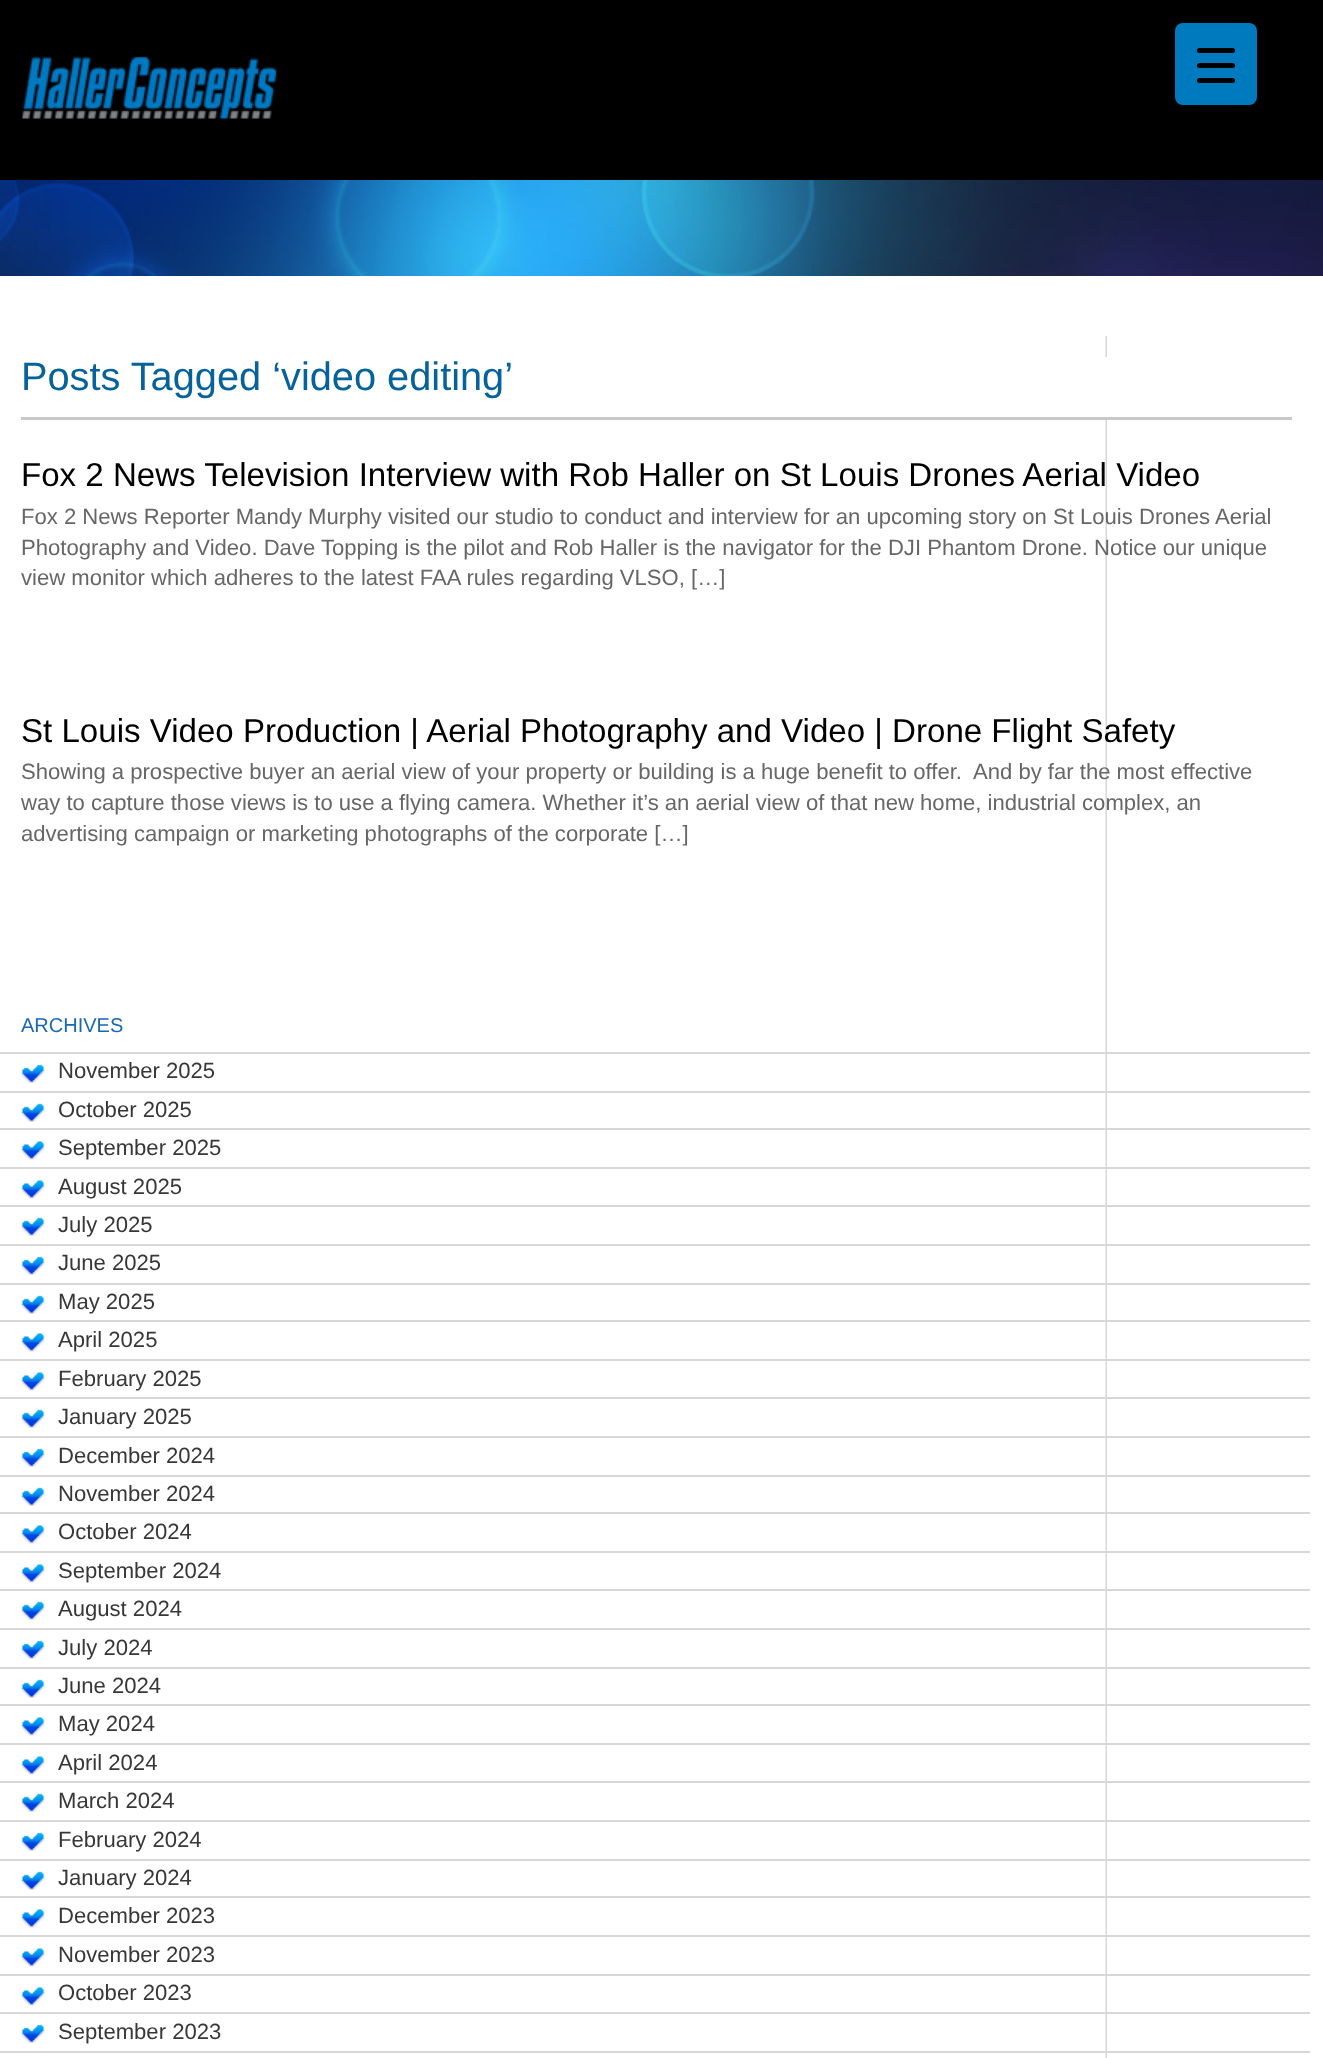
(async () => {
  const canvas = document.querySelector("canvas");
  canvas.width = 1323;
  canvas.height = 2058;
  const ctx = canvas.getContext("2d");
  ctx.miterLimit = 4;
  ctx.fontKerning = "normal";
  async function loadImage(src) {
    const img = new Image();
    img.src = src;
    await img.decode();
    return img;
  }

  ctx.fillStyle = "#ffffff";
  ctx.fillRect(0, 0, 1323, 2058);
  ctx.drawImage(await loadImage("img/1.png"), 0, 180, 1323, 96);
  ctx.fillStyle = "#000000";
  ctx.fillRect(0, 0, 1323, 180);
  ctx.fillStyle = "#007abe";
  ctx.beginPath();
  ctx.roundRect(1175, 23, 82, 82, 8);
  ctx.fill();
  ctx.fillStyle = "#000000";
  ctx.beginPath();
  ctx.roundRect(1197, 63, 38, 5, 2.5);
  ctx.fill();
  ctx.beginPath();
  ctx.roundRect(1197, 48, 38, 5, 2.5);
  ctx.fill();
  ctx.beginPath();
  ctx.roundRect(1197, 78, 38, 5, 2.5);
  ctx.fill();
  ctx.drawImage(await loadImage("img/2.png"), 22, 56, 255, 63);
  ctx.drawImage(await loadImage("img/3.png"), 1105, 336, 2, 1722);
  for (const [x, y, w, h, color] of [
    [1105, 357, 2, 60, "#ffffff"],
    [21, 417, 1271, 3, "#c9c9c9"],
    [0, 1052, 1310, 2, "#d7d7d7"],
  ]) {
    ctx.fillStyle = color;
    ctx.fillRect(x, y, w, h);
  }
  ctx.drawImage(await loadImage("img/4.png"), 21, 1064, 24, 19);
  ctx.fillRect(0, 1091, 1310, 2);
  ctx.drawImage(await loadImage("img/4.png"), 21, 1103, 24, 19);
  ctx.fillRect(0, 1128, 1310, 2);
  ctx.drawImage(await loadImage("img/5.png"), 21, 1141, 24, 19);
  ctx.fillRect(0, 1167, 1310, 2);
  ctx.drawImage(await loadImage("img/5.png"), 21, 1180, 24, 19);
  ctx.fillRect(0, 1205, 1310, 2);
  ctx.drawImage(await loadImage("img/4.png"), 21, 1217, 24, 19);
  ctx.fillRect(0, 1244, 1310, 2);
  ctx.drawImage(await loadImage("img/4.png"), 21, 1256, 24, 19);
  ctx.fillRect(0, 1283, 1310, 2);
  ctx.drawImage(await loadImage("img/4.png"), 21, 1295, 24, 19);
  ctx.fillRect(0, 1320, 1310, 2);
  ctx.drawImage(await loadImage("img/5.png"), 21, 1333, 24, 19);
  ctx.fillRect(0, 1359, 1310, 2);
  ctx.drawImage(await loadImage("img/5.png"), 21, 1372, 24, 19);
  ctx.fillRect(0, 1397, 1310, 2);
  ctx.drawImage(await loadImage("img/4.png"), 21, 1409, 24, 19);
  ctx.fillRect(0, 1436, 1310, 2);
  ctx.drawImage(await loadImage("img/4.png"), 21, 1448, 24, 19);
  ctx.fillRect(0, 1475, 1310, 2);
  ctx.drawImage(await loadImage("img/4.png"), 21, 1487, 24, 19);
  ctx.fillRect(0, 1512, 1310, 2);
  ctx.drawImage(await loadImage("img/5.png"), 21, 1525, 24, 19);
  ctx.fillRect(0, 1551, 1310, 2);
  ctx.drawImage(await loadImage("img/5.png"), 21, 1564, 24, 19);
  ctx.fillRect(0, 1589, 1310, 2);
  ctx.drawImage(await loadImage("img/4.png"), 21, 1601, 24, 19);
  ctx.fillRect(0, 1628, 1310, 2);
  ctx.drawImage(await loadImage("img/4.png"), 21, 1640, 24, 19);
  ctx.fillRect(0, 1667, 1310, 2);
  ctx.drawImage(await loadImage("img/4.png"), 21, 1679, 24, 19);
  ctx.fillRect(0, 1704, 1310, 2);
  ctx.drawImage(await loadImage("img/5.png"), 21, 1717, 24, 19);
  ctx.fillRect(0, 1743, 1310, 2);
  ctx.drawImage(await loadImage("img/5.png"), 21, 1756, 24, 19);
  ctx.fillRect(0, 1781, 1310, 2);
  ctx.drawImage(await loadImage("img/4.png"), 21, 1793, 24, 19);
  ctx.fillRect(0, 1820, 1310, 2);
  ctx.drawImage(await loadImage("img/4.png"), 21, 1832, 24, 19);
  ctx.fillRect(0, 1859, 1310, 2);
  ctx.drawImage(await loadImage("img/4.png"), 21, 1871, 24, 19);
  ctx.fillRect(0, 1896, 1310, 2);
  ctx.drawImage(await loadImage("img/5.png"), 21, 1909, 24, 19);
  ctx.fillRect(0, 1935, 1310, 2);
  ctx.drawImage(await loadImage("img/5.png"), 21, 1948, 24, 19);
  ctx.fillRect(0, 1974, 1310, 2);
  ctx.drawImage(await loadImage("img/5.png"), 21, 1987, 24, 19);
  ctx.fillRect(0, 2012, 1310, 2);
  ctx.drawImage(await loadImage("img/4.png"), 21, 2024, 24, 19);
  ctx.fillRect(0, 2051, 1310, 2);
  ctx.font = "39.75px Liberation Sans";
  ctx.fillStyle = "#05629a";
  ctx.fillText("Posts Tagged ‘video editing’", 21, 390);
  ctx.font = "33.1px Liberation Sans";
  ctx.fillStyle = "#000000";
  ctx.fillText("Fox 2 News Television Interview with Rob Haller on St Louis Drones Aerial Video", 21, 486);
  ctx.font = "22.08px Liberation Sans";
  ctx.fillStyle = "#666666";
  for (const [text, x, y] of [
    ["Fox 2 News Reporter Mandy Murphy visited our studio to conduct and interview for an upcoming story on St Louis Drones Aerial", 21, 524],
    ["Photography and Video. Dave Topping is the pilot and Rob Haller is the navigator for the DJI Phantom Drone. Notice our unique", 21, 555],
    ["view monitor which adheres to the latest FAA rules regarding VLSO, […]", 21, 585],
  ]) {
    ctx.fillText(text, x, y);
  }
  ctx.font = "33.1px Liberation Sans";
  ctx.fillStyle = "#000000";
  ctx.fillText("St Louis Video Production | Aerial Photography and Video | Drone Flight Safety", 21, 742);
  ctx.font = "22.08px Liberation Sans";
  ctx.fillStyle = "#666666";
  for (const [text, x, y] of [
    ["Showing a prospective buyer an aerial view of your property or building is a huge benefit to offer.  And by far the most effective", 21, 779],
    ["way to capture those views is to use a flying camera. Whether it’s an aerial view of that new home, industrial complex, an", 21, 810],
    ["advertising campaign or marketing photographs of the corporate […]", 21, 841],
  ]) {
    ctx.fillText(text, x, y);
  }
  ctx.font = "20px Liberation Sans";
  ctx.fillStyle = "#1967b7";
  ctx.fillText("ARCHIVES", 21, 1032);
  ctx.font = "22.08px Liberation Sans";
  ctx.fillStyle = "#373737";
  for (const [text, x, y] of [
    ["November 2025", 58, 1078],
    ["October 2025", 58, 1117],
    ["September 2025", 58, 1155],
    ["August 2025", 58, 1194],
    ["July 2025", 58, 1232],
    ["June 2025", 58, 1270],
    ["May 2025", 58, 1309],
    ["April 2025", 58, 1347],
    ["February 2025", 58, 1386],
    ["January 2025", 58, 1424],
    ["December 2024", 58, 1463],
    ["November 2024", 58, 1501],
    ["October 2024", 58, 1539],
    ["September 2024", 58, 1578],
    ["August 2024", 58, 1616],
    ["July 2024", 58, 1655],
    ["June 2024", 58, 1693],
    ["May 2024", 58, 1731],
    ["April 2024", 58, 1770],
    ["March 2024", 58, 1808],
    ["February 2024", 58, 1847],
    ["January 2024", 58, 1885],
    ["December 2023", 58, 1923],
    ["November 2023", 58, 1962],
    ["October 2023", 58, 2000],
    ["September 2023", 58, 2039],
  ]) {
    ctx.fillText(text, x, y);
  }
})();
